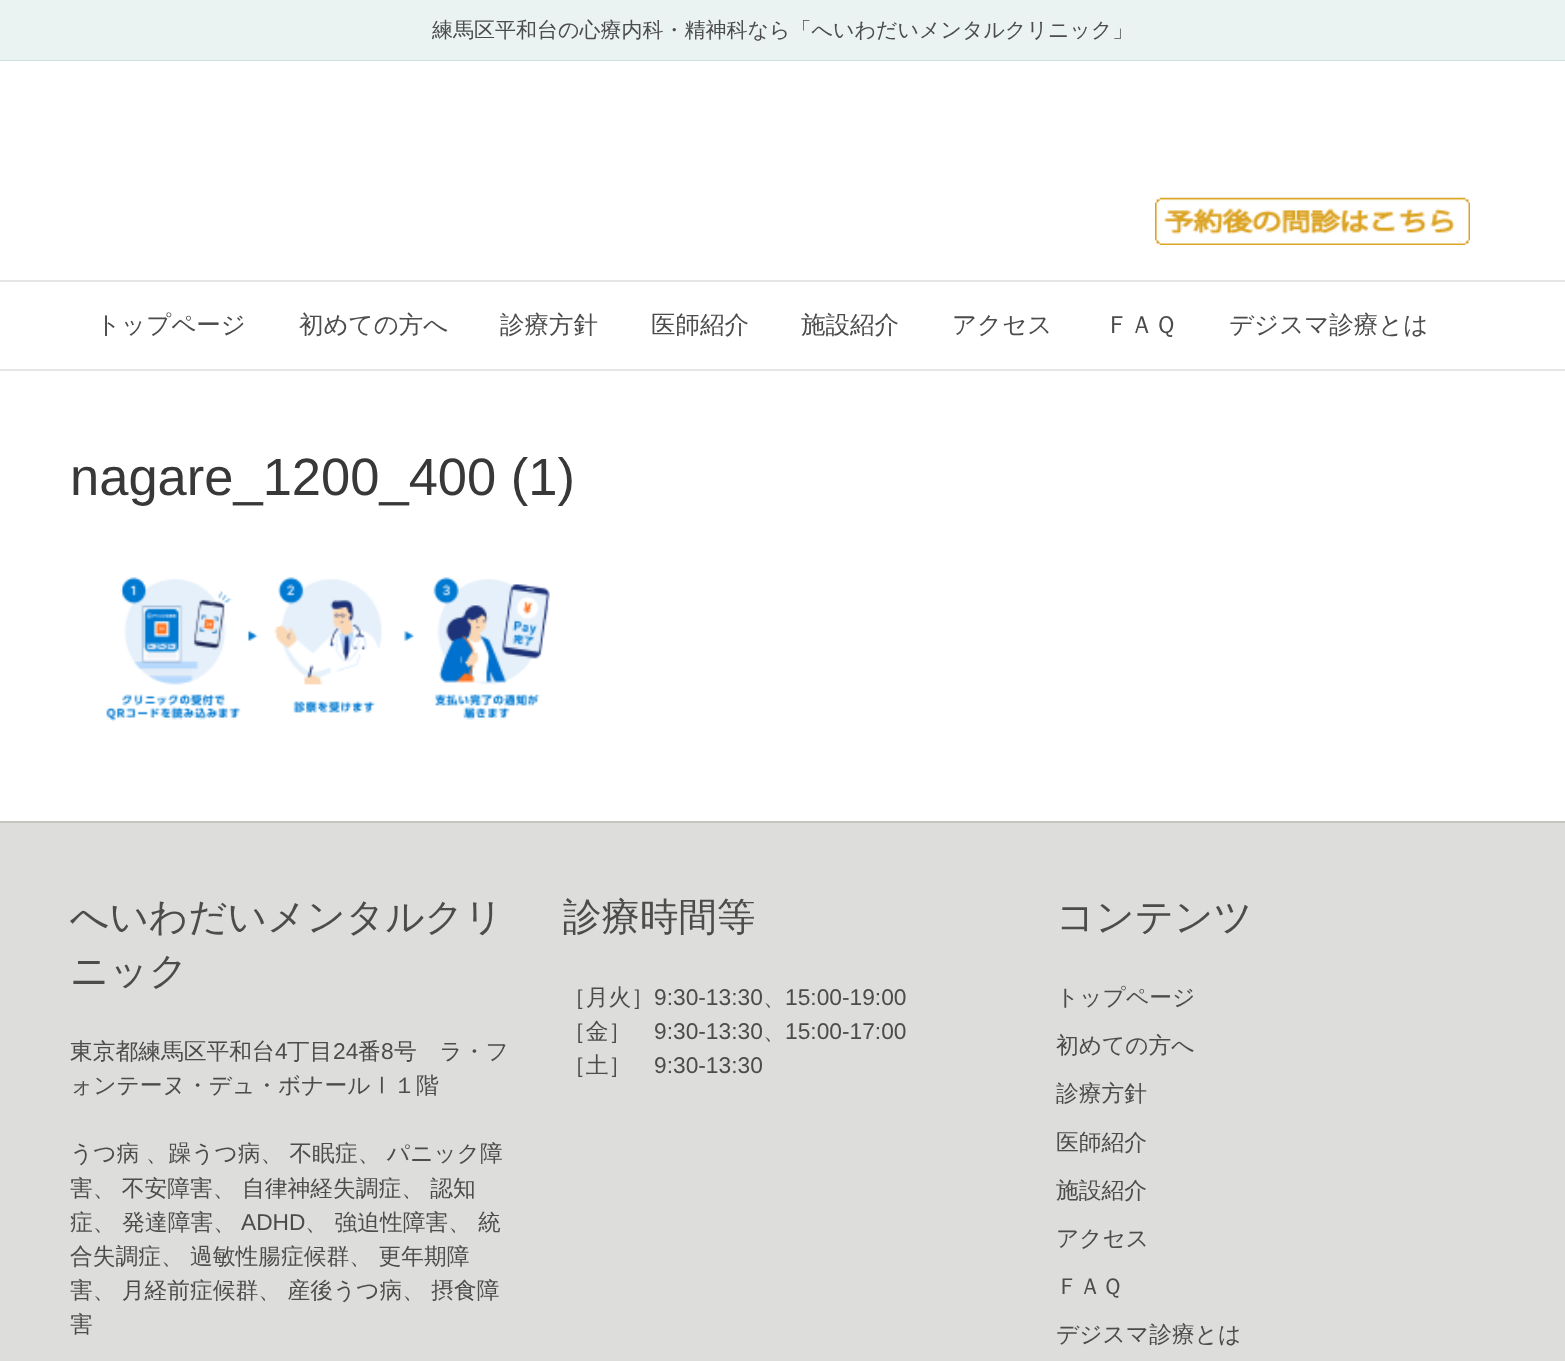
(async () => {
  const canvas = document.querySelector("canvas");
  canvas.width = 1565;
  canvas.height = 1361;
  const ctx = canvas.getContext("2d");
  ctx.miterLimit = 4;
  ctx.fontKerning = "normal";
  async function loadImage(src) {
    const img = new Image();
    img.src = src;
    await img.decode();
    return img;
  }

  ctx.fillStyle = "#ffffff";
  ctx.fillRect(0, 0, 1565, 1361);
  ctx.fillStyle = "#eaf2f2";
  ctx.fillRect(0, 0, 1565, 60);
  ctx.fillStyle = "#cbdfdf";
  ctx.fillRect(0, 60, 1565, 1);
  ctx.drawImage(await loadImage("img/1.png"), 1155, 197, 315, 48);
  ctx.fillStyle = "#e6e6e6";
  ctx.fillRect(0, 280, 1565, 2);
  ctx.fillRect(0, 369, 1565, 2);
  ctx.drawImage(await loadImage("img/2.png"), 106, 577, 444, 145);
  ctx.fillStyle = "#dddddb";
  ctx.fillRect(0, 823, 1565, 538);
  ctx.fillStyle = "#c4c4c1";
  ctx.fillRect(0, 821, 1565, 2);
  ctx.font = "500 21px WenQuanYi Zen Hei";
  ctx.fillStyle = "#4c4c4c";
  ctx.fillText("練馬区平和台の心療内科・精神科なら「へいわだいメンタルクリニック」", 432, 37);
  ctx.font = "500 24.5px WenQuanYi Zen Hei";
  for (const [text, x, y] of [
    ["トップページ", 96, 333],
    ["初めての方へ", 299, 333],
    ["診療方針", 500, 333],
    ["医師紹介", 651, 333],
    ["施設紹介", 801, 333],
    ["アクセス", 952, 333],
    ["ＦＡＱ", 1105, 333],
    ["デジスマ診療とは", 1229, 333],
  ]) {
    ctx.fillText(text, x, y);
  }
  ctx.font = "52.5px Liberation Sans";
  ctx.fillStyle = "#383838";
  ctx.fillText("nagare_1200_400 (1)", 70, 495);
  ctx.font = "500 38.5px WenQuanYi Zen Hei";
  ctx.fillStyle = "#4c4c4c";
  ctx.fillText("へいわだいメンタルクリ", 70, 930);
  ctx.fillText("ニック", 70, 984);
  ctx.font = "500 22.75px WenQuanYi Zen Hei";
  ctx.fillText("東京都練馬区平和台", 70, 1059);
  ctx.font = "22.75px Liberation Sans";
  ctx.fillText("4", 275, 1059);
  ctx.font = "500 22.75px WenQuanYi Zen Hei";
  ctx.fillText("丁目", 287, 1059);
  ctx.font = "22.75px Liberation Sans";
  ctx.fillText("24", 333, 1059);
  ctx.font = "500 22.75px WenQuanYi Zen Hei";
  ctx.fillText("番", 358, 1059);
  ctx.font = "22.75px Liberation Sans";
  ctx.fillText("8", 381, 1059);
  ctx.font = "500 22.75px WenQuanYi Zen Hei";
  ctx.fillText("号　ラ・フ", 394, 1059);
  ctx.fillText("ォンテーヌ・デュ・ボナールⅠ１階", 70, 1093);
  ctx.wordSpacing = "-0.5px";
  ctx.fillText("うつ病 、躁うつ病、 不眠症、 パニック障", 70, 1161);
  ctx.fillText("害、 不安障害、 自律神経失調症、 認知", 70, 1196);
  ctx.wordSpacing = "0px";
  ctx.fillText("症、 発達障害、", 70, 1230);
  ctx.font = "22.75px Liberation Sans";
  ctx.fillText("ADHD", 241, 1230);
  ctx.font = "500 22.75px WenQuanYi Zen Hei";
  ctx.fillText("、 強迫性障害、 統", 305, 1230);
  ctx.wordSpacing = "-0.5px";
  ctx.fillText("合失調症、 過敏性腸症候群、 更年期障", 70, 1264);
  ctx.fillText("害、 月経前症候群、 産後うつ病、 摂食障", 70, 1298);
  ctx.wordSpacing = "0px";
  ctx.fillText("害", 70, 1332);
  ctx.font = "500 38.5px WenQuanYi Zen Hei";
  ctx.fillText("診療時間等", 563, 930);
  ctx.font = "500 22.75px WenQuanYi Zen Hei";
  ctx.fillText("［月火］", 563, 1005);
  ctx.font = "22.75px Liberation Sans";
  ctx.fillText("9:30-13:30", 654, 1005);
  ctx.font = "500 22.75px WenQuanYi Zen Hei";
  ctx.fillText("、", 763, 1005);
  ctx.font = "22.75px Liberation Sans";
  ctx.fillText("15:00-19:00", 785, 1005);
  ctx.font = "500 22.75px WenQuanYi Zen Hei";
  ctx.fillText("［金］", 563, 1039);
  ctx.font = "22.75px Liberation Sans";
  ctx.fillText("9:30-13:30", 654, 1039);
  ctx.font = "500 22.75px WenQuanYi Zen Hei";
  ctx.fillText("、", 763, 1039);
  ctx.font = "22.75px Liberation Sans";
  ctx.fillText("15:00-17:00", 785, 1039);
  ctx.font = "500 22.75px WenQuanYi Zen Hei";
  ctx.fillText("［土］", 563, 1073);
  ctx.font = "22.75px Liberation Sans";
  ctx.fillText("9:30-13:30", 654, 1073);
  ctx.font = "500 38.5px WenQuanYi Zen Hei";
  ctx.fillText("コンテンツ", 1056, 930);
  ctx.font = "500 22.75px WenQuanYi Zen Hei";
  for (const [text, x, y] of [
    ["トップページ", 1056, 1005],
    ["初めての方へ", 1056, 1053],
    ["診療方針", 1056, 1101],
    ["医師紹介", 1056, 1150],
    ["施設紹介", 1056, 1198],
    ["アクセス", 1056, 1246],
    ["ＦＡＱ", 1056, 1294],
    ["デジスマ診療とは", 1056, 1342],
  ]) {
    ctx.fillText(text, x, y);
  }
})();
